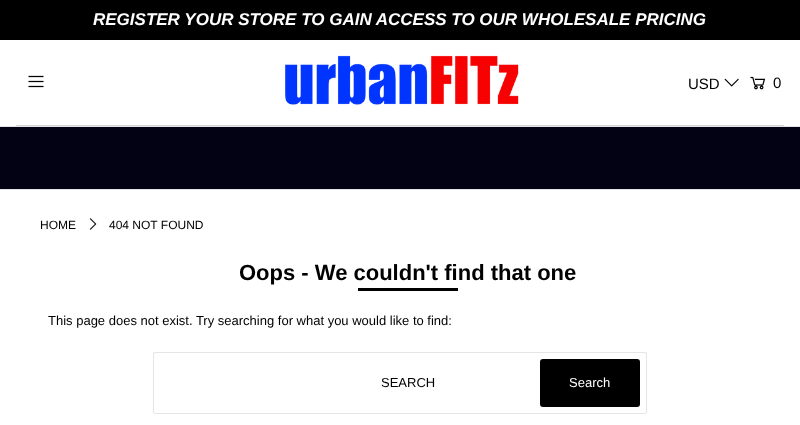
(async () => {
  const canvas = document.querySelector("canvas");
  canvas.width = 800;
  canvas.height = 425;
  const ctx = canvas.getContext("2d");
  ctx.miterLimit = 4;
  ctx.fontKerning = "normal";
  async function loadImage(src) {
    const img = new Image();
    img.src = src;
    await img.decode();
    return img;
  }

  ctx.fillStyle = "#ffffff";
  ctx.fillRect(0, 0, 800, 425);
  ctx.fillStyle = "#000000";
  ctx.fillRect(0, 0, 800, 40);
  ctx.fillStyle = "#d5d5d5";
  ctx.fillRect(16, 125, 768, 1);
  ctx.drawImage(await loadImage("img/1.png"), 28, 75, 16, 13);
  ctx.drawImage(await loadImage("img/2.png"), 285, 55, 234, 50);
  ctx.drawImage(await loadImage("img/3.png"), 724, 78, 15, 9);
  ctx.drawImage(await loadImage("img/4.png"), 750, 76, 16, 14);
  for (const [x, y, w, h, color] of [
    [0, 127, 800, 62, "#030114"],
    [0, 126, 800, 1, "#e5e5e5"],
    [0, 189, 800, 1, "#e5e5e5"],
  ]) {
    ctx.fillStyle = color;
    ctx.fillRect(x, y, w, h);
  }
  ctx.drawImage(await loadImage("img/5.png"), 89, 218, 8, 12);
  ctx.fillStyle = "#000000";
  ctx.fillRect(358, 288, 100, 3);
  ctx.beginPath();
  ctx.roundRect(153.5, 352.5, 493, 61, 1.5);
  ctx.strokeStyle = "#e5e5e5";
  ctx.stroke();
  ctx.beginPath();
  ctx.roundRect(540, 359, 100, 48, 3);
  ctx.fill();
  ctx.font = "italic bold 17px Liberation Sans";
  ctx.fillStyle = "#ffffff";
  ctx.fillText("REGISTER YOUR STORE TO GAIN ACCESS TO OUR WHOLESALE PRICING", 93, 25);
  ctx.font = "15px Liberation Sans";
  ctx.fillStyle = "#000000";
  ctx.fillText("USD", 688, 89);
  ctx.fillText("0", 773, 88);
  ctx.font = "12px Liberation Sans";
  ctx.fillText("HOME", 40, 229);
  ctx.fillText("404 NOT FOUND", 109, 229);
  ctx.font = "bold 22px Liberation Sans";
  ctx.fillText("Oops - We couldn't find that one", 239, 280);
  ctx.font = "13px Liberation Sans";
  ctx.fillText("This page does not exist. Try searching for what you would like to find:", 48, 325);
  ctx.fillText("SEARCH", 381, 387);
  ctx.fillStyle = "#ffffff";
  ctx.fillText("Search", 569, 387);
})();
